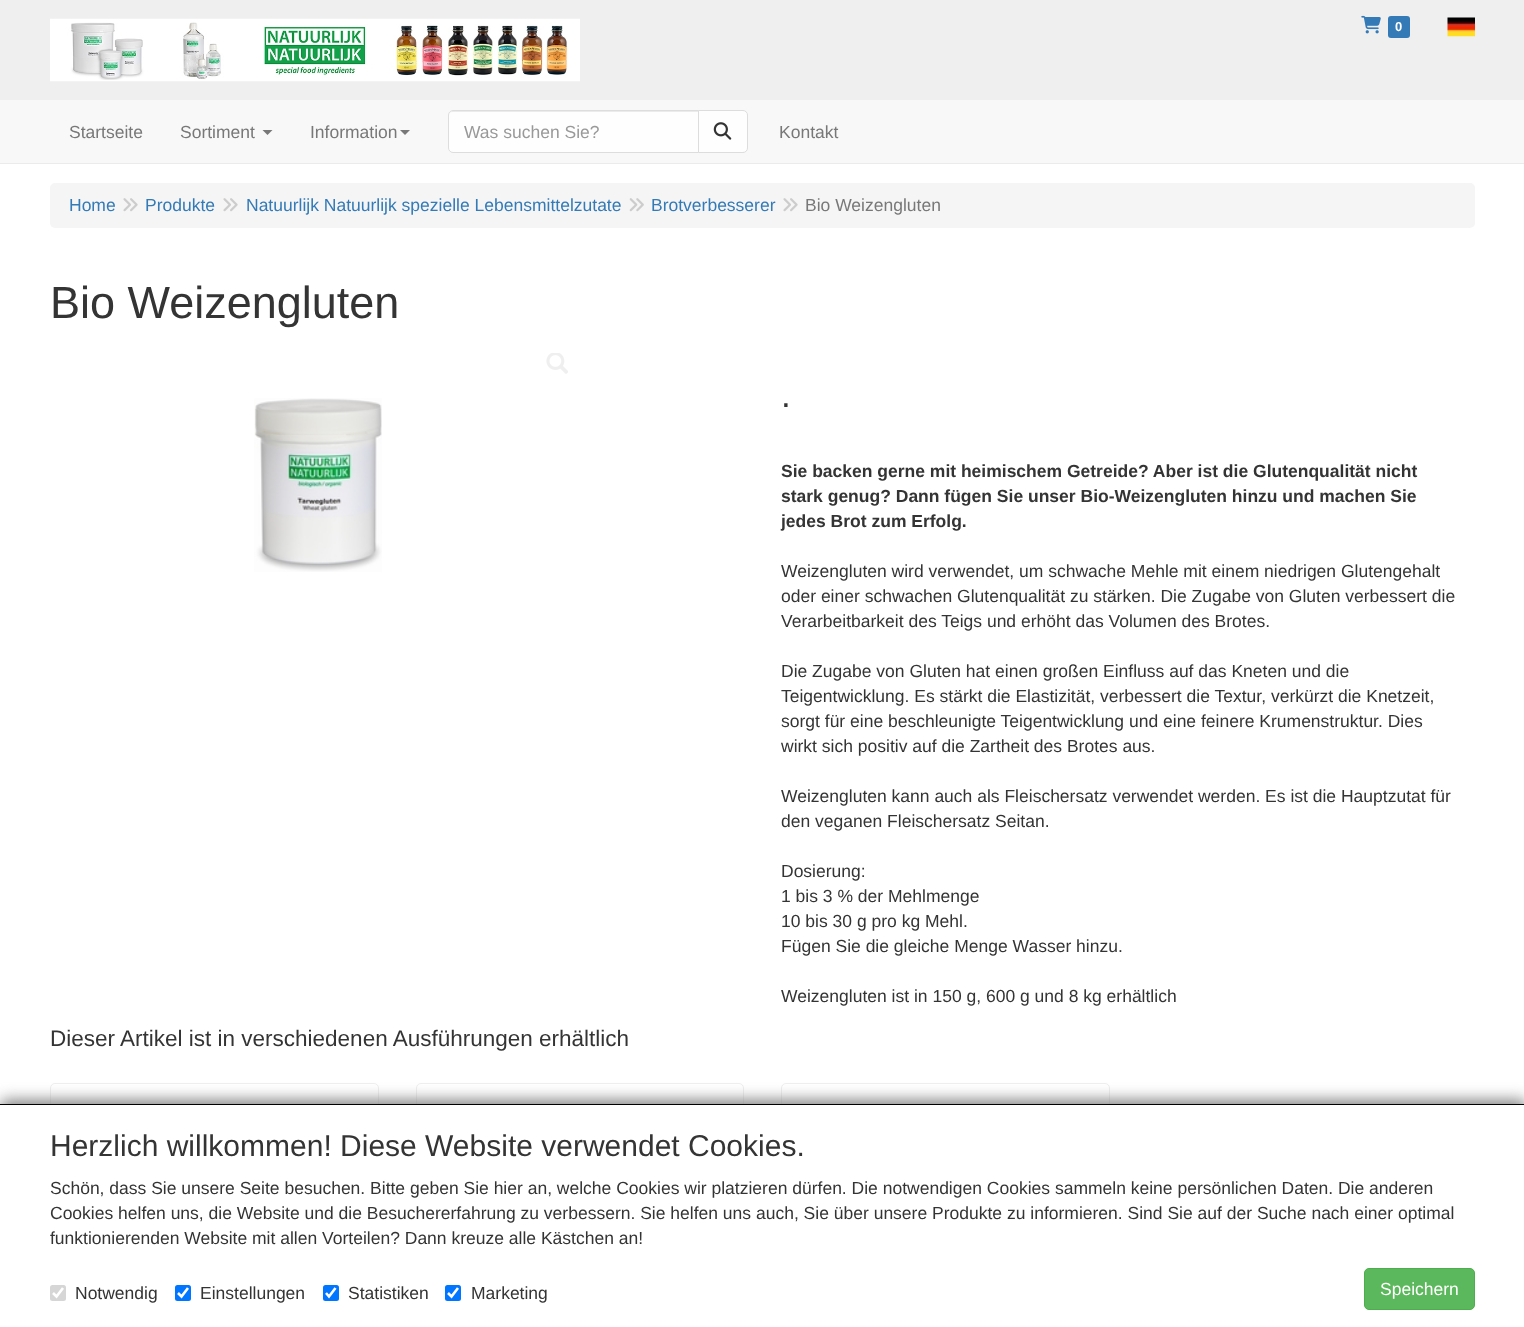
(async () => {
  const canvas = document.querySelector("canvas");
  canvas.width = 1524;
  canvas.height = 1327;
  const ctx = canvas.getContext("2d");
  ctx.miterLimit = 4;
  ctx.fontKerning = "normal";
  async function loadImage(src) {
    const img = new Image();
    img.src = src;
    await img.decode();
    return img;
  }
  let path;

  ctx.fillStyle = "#ffffff";
  ctx.fillRect(0, 0, 1524, 1327);
  ctx.fillStyle = "#efefef";
  ctx.fillRect(0, 0, 1524, 100);
  ctx.drawImage(await loadImage("img/1.png"), 50, 18, 530, 64);
  ctx.drawImage(await loadImage("img/2.png"), 1361, 15, 20, 19);
  ctx.fillStyle = "#337ab7";
  ctx.beginPath();
  ctx.roundRect(1388, 16, 22, 22, 3);
  ctx.fill();
  ctx.drawImage(await loadImage("img/3.png"), 1447, 17, 28, 20);
  ctx.fillStyle = "#f8f8f8";
  ctx.fillRect(0, 100, 1524, 63);
  ctx.fillStyle = "#ebebeb";
  ctx.fillRect(0, 163, 1524, 1);
  ctx.fillStyle = "#787878";
  path = new Path2D("M262.5 130H272.5L267.5 135Z");
  ctx.fill(path);
  path = new Path2D("M400 130H410L405 135Z");
  ctx.fill(path);
  ctx.fillStyle = "#fefefe";
  ctx.beginPath();
  ctx.roundRect(448, 110, 251, 43, [5, 0, 0, 5]);
  ctx.fill();
  ctx.fillStyle = "#ebebeb";
  path = new Path2D("M452 112H698V111H453C451 111 449 113 449 115V116C449 114 450 112 452 112Z");
  ctx.fill(path);
  ctx.beginPath();
  ctx.roundRect(448.5, 110.5, 250, 42, [4.5, 0, 0, 4.5]);
  ctx.strokeStyle = "#dddddd";
  ctx.stroke();
  ctx.fillStyle = "#fefefe";
  ctx.beginPath();
  ctx.roundRect(698.5, 110.5, 49, 42, [0, 4.5, 4.5, 0]);
  ctx.fill();
  ctx.stroke();
  ctx.drawImage(await loadImage("img/4.png"), 713, 122, 19, 18);
  ctx.fillStyle = "#f5f5f5";
  ctx.beginPath();
  ctx.roundRect(50, 183, 1425, 45, 5);
  ctx.fill();
  ctx.drawImage(await loadImage("img/5.png"), 123, 198, 15, 14);
  ctx.drawImage(await loadImage("img/5.png"), 223, 198, 15, 14);
  ctx.drawImage(await loadImage("img/6.png"), 629, 198, 15, 14);
  ctx.drawImage(await loadImage("img/5.png"), 783, 198, 15, 14);
  ctx.drawImage(await loadImage("img/7.png"), 546, 353, 22, 21);
  ctx.drawImage(await loadImage("img/8.png"), 254, 398, 128, 174);
  ctx.beginPath();
  ctx.roundRect(50.5, 1083.5, 328, 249, 4.5);
  ctx.strokeStyle = "#efefef";
  ctx.stroke();
  ctx.beginPath();
  ctx.roundRect(416.5, 1083.5, 327, 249, 4.5);
  ctx.stroke();
  ctx.beginPath();
  ctx.roundRect(781.5, 1083.5, 328, 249, 4.5);
  ctx.stroke();
  ctx.fillStyle = "#808080";
  ctx.filter = "blur(7.5px)";
  ctx.beginPath();
  ctx.rect(1, 1100, 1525, 224);
  ctx.fill();
  ctx.filter = "none";
  ctx.fillStyle = "#ffffff";
  ctx.fillRect(0, 1105, 1524, 222);
  ctx.fillStyle = "#000000";
  ctx.fillRect(0, 1104, 1524, 1);
  ctx.fillStyle = "#d6d6d6";
  ctx.beginPath();
  ctx.roundRect(50, 1285, 16, 16, 2.5);
  ctx.fill();
  path = new Path2D("M53 1293L56.5 1296.5L63 1288");
  ctx.strokeStyle = "#ffffff";
  ctx.lineWidth = 2.6;
  ctx.stroke(path);
  ctx.fillStyle = "#0075ff";
  ctx.beginPath();
  ctx.roundRect(175, 1285, 16, 16, 2.5);
  ctx.fill();
  path = new Path2D("M178 1293L181.5 1296.5L188 1288");
  ctx.stroke(path);
  ctx.beginPath();
  ctx.roundRect(323, 1285, 16, 16, 2.5);
  ctx.fill();
  path = new Path2D("M326 1293L329 1296.5L335.5 1288");
  ctx.stroke(path);
  ctx.beginPath();
  ctx.roundRect(445, 1285, 16, 16, 2.5);
  ctx.fill();
  path = new Path2D("M448 1293L451.5 1296.5L458 1288");
  ctx.stroke(path);
  ctx.fillStyle = "#5cb85c";
  ctx.beginPath();
  ctx.roundRect(1364.5, 1268.5, 110, 41, 4.5);
  ctx.fill();
  ctx.strokeStyle = "#4cae4c";
  ctx.lineWidth = 1;
  ctx.stroke();
  ctx.font = "bold 13px Liberation Sans";
  ctx.fillStyle = "#ffffff";
  ctx.fillText("0", 1395, 31);
  ctx.font = "17.5px Liberation Sans";
  ctx.fillStyle = "#787878";
  for (const [text, x, y] of [
    ["Startseite", 69, 138],
    ["Sortiment", 180, 138],
    ["Information", 310, 138],
  ]) {
    ctx.fillText(text, x, y);
  }
  ctx.fillStyle = "#999999";
  ctx.fillText("Was suchen Sie?", 464, 138);
  ctx.fillStyle = "#787878";
  ctx.fillText("Kontakt", 779, 138);
  ctx.fillStyle = "#337ab7";
  for (const [text, x, y] of [
    ["Home", 69, 211],
    ["Produkte", 145, 211],
    ["Natuurlijk Natuurlijk spezielle Lebensmittelzutate", 246, 211],
    ["Brotverbesserer", 651, 211],
  ]) {
    ctx.fillText(text, x, y);
  }
  ctx.fillStyle = "#787878";
  ctx.fillText("Bio Weizengluten", 805, 211);
  ctx.font = "45px Liberation Sans";
  ctx.fillStyle = "#343434";
  ctx.fillText("Bio Weizengluten", 50, 318);
  ctx.font = "35px Liberation Sans";
  ctx.fillText(".", 781, 407);
  ctx.font = "bold 17.5px Liberation Sans";
  for (const [text, x, y] of [
    ["Sie backen gerne mit heimischem Getreide? Aber ist die Glutenqualität nicht", 781, 477],
    ["stark genug? Dann fügen Sie unser Bio-Weizengluten hinzu und machen Sie", 781, 502],
    ["jedes Brot zum Erfolg.", 781, 527],
  ]) {
    ctx.fillText(text, x, y);
  }
  ctx.font = "17.5px Liberation Sans";
  for (const [text, x, y] of [
    ["Weizengluten wird verwendet, um schwache Mehle mit einem niedrigen Glutengehalt", 781, 577],
    ["oder einer schwachen Glutenqualität zu stärken. Die Zugabe von Gluten verbessert die", 781, 602],
    ["Verarbeitbarkeit des Teigs und erhöht das Volumen des Brotes.", 781, 627],
    ["Die Zugabe von Gluten hat einen großen Einfluss auf das Kneten und die", 781, 677],
    ["Teigentwicklung. Es stärkt die Elastizität, verbessert die Textur, verkürzt die Knetzeit,", 781, 702],
    ["sorgt für eine beschleunigte Teigentwicklung und eine feinere Krumenstruktur. Dies", 781, 727],
    ["wirkt sich positiv auf die Zartheit des Brotes aus.", 781, 752],
    ["Weizengluten kann auch als Fleischersatz verwendet werden. Es ist die Hauptzutat für", 781, 802],
    ["den veganen Fleischersatz Seitan.", 781, 827],
    ["Dosierung:", 781, 877],
    ["1 bis 3 % der Mehlmenge", 781, 902],
    ["10 bis 30 g pro kg Mehl.", 781, 927],
    ["Fügen Sie die gleiche Menge Wasser hinzu.", 781, 952],
    ["Weizengluten ist in 150 g, 600 g und 8 kg erhältlich", 781, 1002],
  ]) {
    ctx.fillText(text, x, y);
  }
  ctx.font = "22.5px Liberation Sans";
  ctx.fillText("Dieser Artikel ist in verschiedenen Ausführungen erhältlich", 50, 1046);
  ctx.font = "30px Liberation Sans";
  ctx.fillText("Herzlich willkommen! Diese Website verwendet Cookies.", 50, 1156);
  ctx.font = "17.5px Liberation Sans";
  for (const [text, x, y] of [
    ["Schön, dass Sie unsere Seite besuchen. Bitte geben Sie hier an, welche Cookies wir platzieren dürfen. Die notwendigen Cookies sammeln keine persönlichen Daten. Die anderen", 50, 1194],
    ["Cookies helfen uns, die Website und die Besuchererfahrung zu verbessern. Sie helfen uns auch, Sie über unsere Produkte zu informieren. Sind Sie auf der Suche nach einer optimal", 50, 1219],
    ["funktionierenden Website mit allen Vorteilen? Dann kreuze alle Kästchen an!", 50, 1244],
    ["Notwendig", 75, 1299],
    ["Einstellungen", 200, 1299],
    ["Statistiken", 348, 1299],
    ["Marketing", 471, 1299],
  ]) {
    ctx.fillText(text, x, y);
  }
  ctx.fillStyle = "#ffffff";
  ctx.fillText("Speichern", 1380, 1295);
})();
